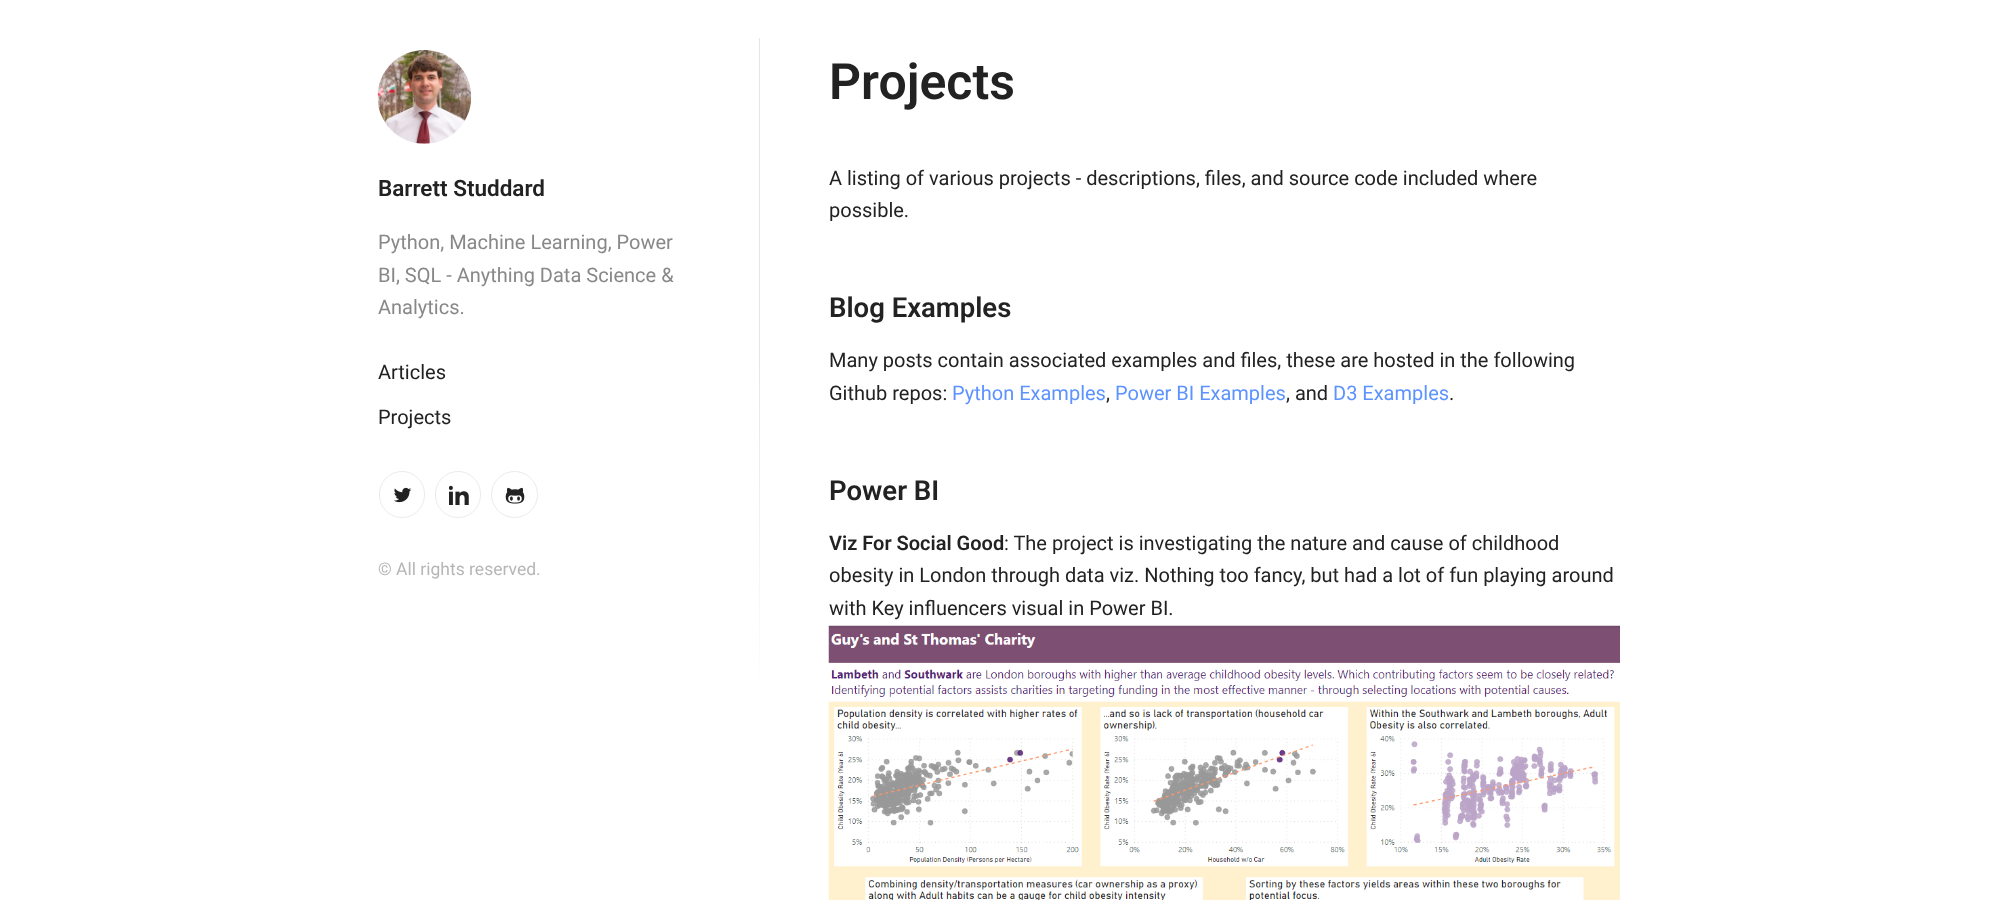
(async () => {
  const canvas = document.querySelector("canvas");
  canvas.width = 1992;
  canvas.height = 900;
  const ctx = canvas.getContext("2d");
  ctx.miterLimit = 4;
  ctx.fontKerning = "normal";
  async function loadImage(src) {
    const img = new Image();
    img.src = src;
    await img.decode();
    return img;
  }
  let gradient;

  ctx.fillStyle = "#ffffff";
  ctx.fillRect(0, 0, 1992, 900);
  ctx.drawImage(await loadImage("img/1.png"), 377, 50, 95, 94);
  gradient = ctx.createLinearGradient(759, 38, 759, 713);
  gradient.addColorStop(0, "#e6e6e6");
  gradient.addColorStop(0.48, "#e6e6e6");
  gradient.addColorStop(1, "#ffffff");
  ctx.fillStyle = gradient;
  ctx.fillRect(759, 38, 1, 640);
  ctx.beginPath();
  ctx.roundRect(379.5, 471.5, 45, 46, 22.5);
  ctx.strokeStyle = "#ebebeb";
  ctx.stroke();
  ctx.drawImage(await loadImage("img/2.png"), 394, 487, 18, 16);
  ctx.beginPath();
  ctx.roundRect(435.5, 471.5, 45, 46, 22.5);
  ctx.stroke();
  ctx.drawImage(await loadImage("img/3.png"), 449, 485, 20, 20);
  ctx.beginPath();
  ctx.arc(514.5, 494.5, 23, 0, Math.PI * 2);
  ctx.stroke();
  ctx.drawImage(await loadImage("img/4.png"), 505, 487, 20, 17);
  ctx.drawImage(await loadImage("img/5.png"), 828, 625, 792, 275);
  ctx.font = "600 22.5px Roboto";
  ctx.fillStyle = "#222222";
  ctx.fillText("Barrett Studdard", 378, 196);
  ctx.font = "20px Roboto";
  ctx.fillStyle = "#888888";
  for (const [text, x, y] of [
    ["Python, Machine Learning, Power", 378, 249],
    ["BI, SQL - Anything Data Science &", 378, 282],
    ["Analytics.", 378, 314],
  ]) {
    ctx.fillText(text, x, y);
  }
  ctx.fillStyle = "#222222";
  ctx.fillText("Articles", 378, 379);
  ctx.fillText("Projects", 378, 424);
  ctx.font = "17.5px Roboto";
  ctx.fillStyle = "#b6b6b6";
  ctx.fillText("© All rights reserved.", 378, 575);
  ctx.font = "600 50px Roboto";
  ctx.fillStyle = "#222222";
  ctx.fillText("Projects", 829, 99);
  ctx.font = "20px Roboto";
  ctx.fillText("A listing of various projects - descriptions, files, and source code included where", 829, 185);
  ctx.fillText("possible.", 829, 217);
  ctx.font = "600 27.5px Roboto";
  ctx.fillText("Blog Examples", 829, 317);
  ctx.font = "20px Roboto";
  ctx.fillText("Many posts contain associated examples and files, these are hosted in the following", 829, 367);
  ctx.fillText("Github repos:", 829, 400);
  ctx.fillStyle = "#5d93ff";
  ctx.fillText("Python Examples", 952, 400);
  ctx.fillStyle = "#222222";
  ctx.fillText(",", 1106, 400);
  ctx.fillStyle = "#5d93ff";
  ctx.fillText("Power BI Examples", 1115, 400);
  ctx.fillStyle = "#222222";
  ctx.fillText(", and", 1286, 400);
  ctx.fillStyle = "#5d93ff";
  ctx.fillText("D3 Examples", 1333, 400);
  ctx.fillStyle = "#222222";
  ctx.fillText(".", 1449, 400);
  ctx.font = "600 27.5px Roboto";
  ctx.fillText("Power BI", 829, 500);
  ctx.font = "600 20px Roboto";
  ctx.fillText("Viz For Social Good", 829, 550);
  ctx.font = "20px Roboto";
  for (const [text, x, y] of [
    [": The project is investigating the nature and cause of childhood", 1004, 550],
    ["obesity in London through data viz. Nothing too fancy, but had a lot of fun playing around", 829, 582],
    ["with Key influencers visual in Power BI.", 829, 615],
  ]) {
    ctx.fillText(text, x, y);
  }
})();
